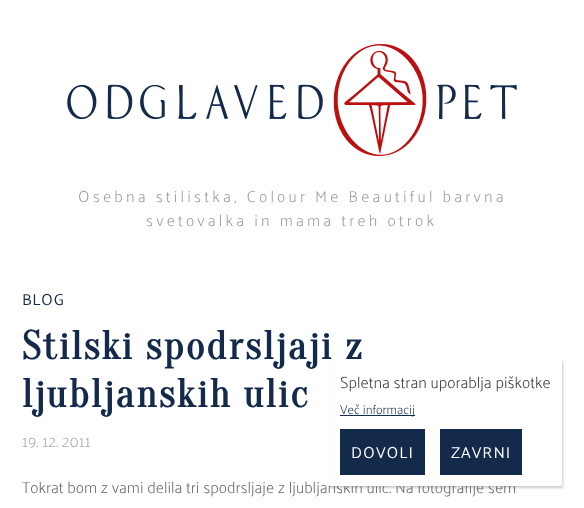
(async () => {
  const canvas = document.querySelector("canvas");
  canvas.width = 584;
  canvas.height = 508;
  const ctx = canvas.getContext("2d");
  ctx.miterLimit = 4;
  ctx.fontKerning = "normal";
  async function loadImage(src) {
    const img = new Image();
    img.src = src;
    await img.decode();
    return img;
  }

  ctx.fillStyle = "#ffffff";
  ctx.fillRect(0, 0, 584, 508);
  ctx.drawImage(await loadImage("img/1.png"), 67, 44, 450, 112);
  ctx.fillStyle = "rgba(0, 0, 0, 0.2)";
  ctx.filter = "blur(1px)";
  ctx.beginPath();
  ctx.rect(330, 361, 233, 127);
  ctx.fill();
  ctx.filter = "none";
  ctx.letterSpacing = "3.2px";
  ctx.font = "200 16px Palanquin";
  ctx.fillStyle = "#999999";
  ctx.fillText("Osebna stilistka, Colour Me Beautiful barvna", 78, 202);
  ctx.fillText("svetovalka in mama treh otrok", 146, 226);
  ctx.letterSpacing = "0.5px";
  ctx.font = "16px Palanquin";
  ctx.fillStyle = "#142a4b";
  ctx.fillText("BLOG", 22, 305);
  ctx.letterSpacing = "2px";
  ctx.font = "bold 40px Oranienbaum";
  ctx.fillText("Stilski spodrsljaji z", 22, 359);
  ctx.fillText("ljubljanskih ulic", 22, 407);
  ctx.letterSpacing = "0px";
  ctx.font = "200 16px Palanquin";
  ctx.fillStyle = "#aaaaaa";
  ctx.fillText("19. 12. 2011", 22, 447);
  ctx.fillStyle = "#666666";
  ctx.fillText("Tokrat bom z vami delila tri spodrsljaje z ljubljanskih ulic. Na fotografije sem", 22, 493);
  ctx.fillStyle = "#ffffff";
  ctx.fillRect(329, 359, 233, 127);
  ctx.fillStyle = "#333333";
  ctx.fillText("Spletna stran uporablja piškotke", 340, 388);
  ctx.fillStyle = "#142a4b";
  ctx.fillRect(340, 415, 75, 1);
  ctx.font = "200 12.75px Palanquin";
  ctx.fillText("Več informacij", 340, 414);
  ctx.fillRect(340, 429, 85, 46);
  ctx.letterSpacing = "1px";
  ctx.font = "16px Palanquin";
  ctx.fillStyle = "#ffffff";
  ctx.fillText("DOVOLI", 351, 458);
  ctx.fillStyle = "#142a4b";
  ctx.fillRect(440, 429, 82, 46);
  ctx.fillStyle = "#ffffff";
  ctx.fillText("ZAVRNI", 451, 458);
})();
